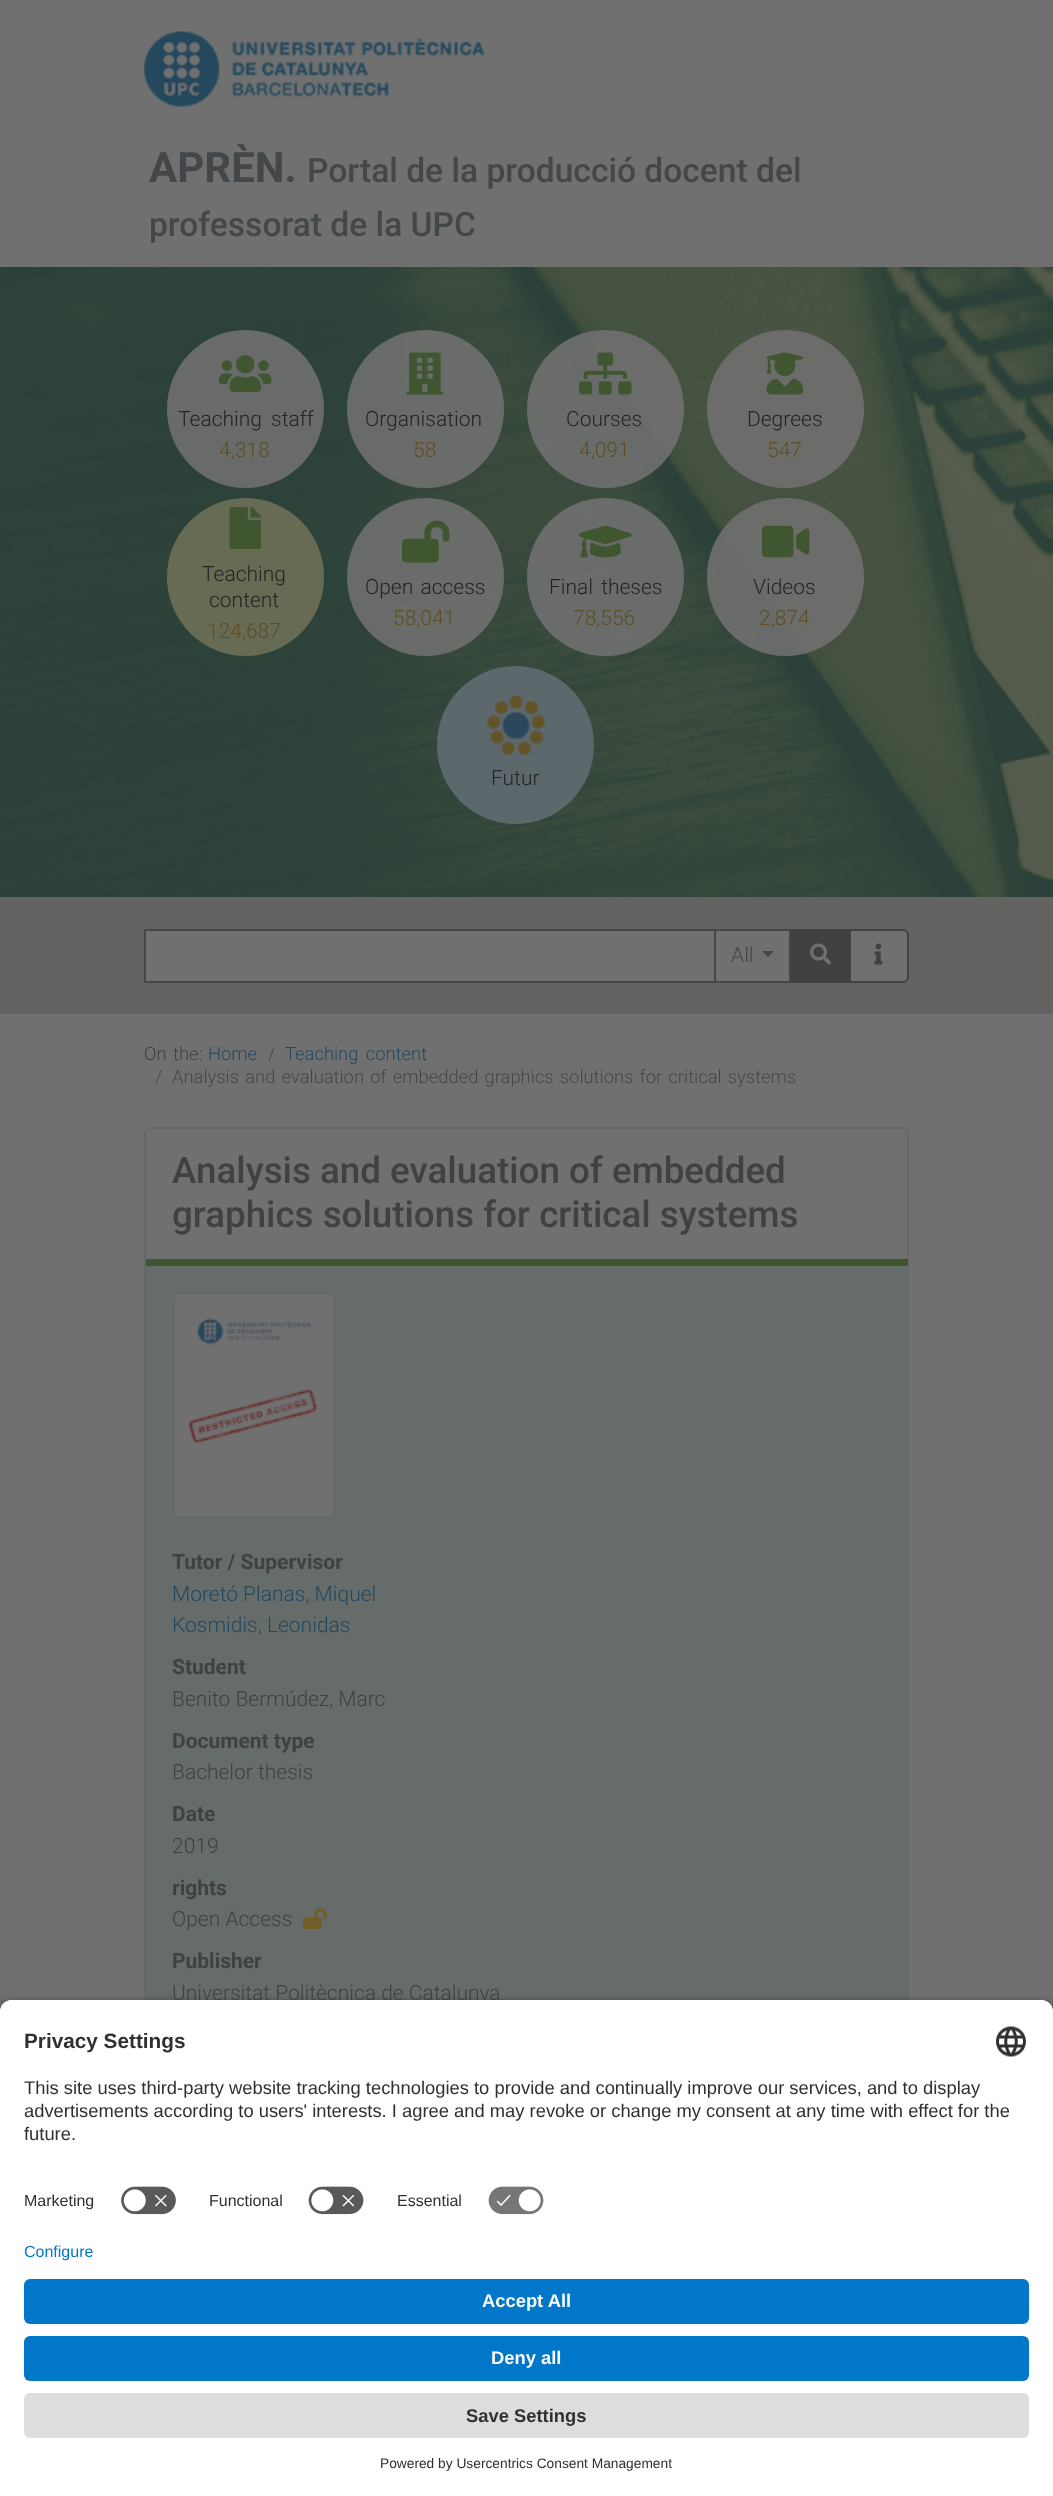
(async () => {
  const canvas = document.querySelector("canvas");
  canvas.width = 1053;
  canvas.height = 2496;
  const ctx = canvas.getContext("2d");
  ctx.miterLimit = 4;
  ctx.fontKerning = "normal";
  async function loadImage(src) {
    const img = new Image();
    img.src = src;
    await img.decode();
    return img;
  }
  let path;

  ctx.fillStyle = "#707070";
  ctx.fillRect(0, 0, 1053, 2496);
  ctx.drawImage(await loadImage("img/1.png"), 144, 31, 341, 76);
  ctx.drawImage(await loadImage("img/2.png"), 0, 267, 1053, 630);
  ctx.fillStyle = "rgba(112, 112, 112, 0.9)";
  ctx.beginPath();
  ctx.roundRect(167, 330, 157, 158, 78.5);
  ctx.fill();
  ctx.drawImage(await loadImage("img/3.png"), 219, 355, 53, 37);
  ctx.beginPath();
  ctx.roundRect(347, 330, 157, 158, 78.5);
  ctx.fill();
  ctx.drawImage(await loadImage("img/4.png"), 406, 352, 38, 43);
  ctx.beginPath();
  ctx.roundRect(527, 330, 157, 158, 78.5);
  ctx.fill();
  ctx.drawImage(await loadImage("img/5.png"), 579, 352, 53, 43);
  ctx.beginPath();
  ctx.roundRect(707, 330, 157, 158, 78.5);
  ctx.fill();
  ctx.drawImage(await loadImage("img/6.png"), 766, 352, 38, 43);
  ctx.fillStyle = "#676b53";
  ctx.beginPath();
  ctx.roundRect(167, 498, 157, 158, 78.5);
  ctx.fill();
  ctx.drawImage(await loadImage("img/7.png"), 229, 507, 32, 42);
  ctx.fillStyle = "rgba(112, 112, 112, 0.9)";
  ctx.beginPath();
  ctx.roundRect(347, 498, 157, 158, 78.5);
  ctx.fill();
  ctx.drawImage(await loadImage("img/8.png"), 402, 520, 48, 43);
  ctx.beginPath();
  ctx.roundRect(527, 498, 157, 158, 78.5);
  ctx.fill();
  ctx.drawImage(await loadImage("img/9.png"), 579, 525, 53, 33);
  ctx.beginPath();
  ctx.roundRect(707, 498, 157, 158, 78.5);
  ctx.fill();
  ctx.drawImage(await loadImage("img/10.png"), 762, 525, 48, 33);
  ctx.fillStyle = "#5d686d";
  ctx.beginPath();
  ctx.roundRect(437, 666, 157, 158, 78.5);
  ctx.fill();
  ctx.drawImage(await loadImage("img/11.png"), 487, 696, 58, 59);
  ctx.fillStyle = "#636462";
  ctx.fillRect(0, 897, 1053, 117);
  ctx.fillStyle = "#707070";
  ctx.beginPath();
  ctx.rect(145, 930, 570, 52);
  ctx.fill();
  ctx.strokeStyle = "#444749";
  ctx.lineWidth = 2;
  ctx.stroke();
  ctx.beginPath();
  ctx.rect(715, 930, 75, 52);
  ctx.fill();
  ctx.stroke();
  ctx.fillStyle = "#444749";
  path = new Path2D("M762 951H774L768 957Z");
  ctx.fill(path);
  ctx.fillStyle = "#414141";
  ctx.fillRect(791, 929, 58, 54);
  ctx.drawImage(await loadImage("img/12.png"), 810, 943, 21, 22);
  ctx.fillStyle = "#707070";
  ctx.beginPath();
  ctx.roundRect(850, 930, 58, 52, [0, 5, 5, 0]);
  ctx.fill();
  ctx.strokeStyle = "#414141";
  ctx.stroke();
  ctx.drawImage(await loadImage("img/13.png"), 874, 943, 9, 22);
  ctx.beginPath();
  ctx.roundRect(145, 1128, 763, 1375, 5);
  ctx.strokeStyle = "#676767";
  ctx.stroke();
  ctx.fillStyle = "#405630";
  ctx.fillRect(146, 1259, 762, 7);
  ctx.fillStyle = "#666c6a";
  ctx.fillRect(146, 1266, 762, 734);
  ctx.fillStyle = "#707070";
  ctx.beginPath();
  ctx.roundRect(174, 1293, 161, 224, 5);
  ctx.fill();
  ctx.strokeStyle = "#666869";
  ctx.stroke();
  ctx.drawImage(await loadImage("img/14.png"), 188, 1318, 129, 126);
  ctx.drawImage(await loadImage("img/15.png"), 303, 1908, 24, 21);
  ctx.fillStyle = "rgba(0, 0, 0, 0.8)";
  ctx.filter = "blur(5px)";
  ctx.beginPath();
  ctx.roundRect(0, 2004, 1053, 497, 12);
  ctx.fill();
  ctx.filter = "none";
  ctx.fillStyle = "#ffffff";
  ctx.fillRect(0, 2243, 1053, 253);
  ctx.fillStyle = "#0077c8";
  ctx.beginPath();
  ctx.roundRect(24, 2279, 1005, 45, 6);
  ctx.fill();
  ctx.beginPath();
  ctx.roundRect(24, 2336, 1005, 45, 6);
  ctx.fill();
  ctx.fillStyle = "#dddddd";
  ctx.beginPath();
  ctx.roundRect(24, 2393, 1005, 45, 6);
  ctx.fill();
  ctx.font = "bold 42px Roboto";
  ctx.fillStyle = "#444749";
  ctx.fillText("APRÈN.", 149, 182);
  ctx.font = "500 33.6px Roboto";
  ctx.fillText("Portal de la producció docent del", 307, 182);
  ctx.fillText("professorat de la UPC", 149, 236);
  ctx.wordSpacing = "4px";
  ctx.font = "300 21px Roboto";
  ctx.fillStyle = "#242424";
  ctx.fillText("Teaching staff", 178, 426);
  ctx.wordSpacing = "0px";
  ctx.fillStyle = "#5e4d25";
  ctx.fillText("4,318", 219, 457);
  ctx.fillStyle = "#242424";
  ctx.fillText("Organisation", 365, 426);
  ctx.fillStyle = "#5e4d25";
  ctx.fillText("58", 413, 457);
  ctx.fillStyle = "#242424";
  ctx.fillText("Courses", 566, 426);
  ctx.fillStyle = "#5e4d25";
  ctx.fillText("4,091", 579, 457);
  ctx.fillStyle = "#242424";
  ctx.fillText("Degrees", 747, 426);
  ctx.fillStyle = "#5e4d25";
  ctx.fillText("547", 767, 457);
  ctx.fillStyle = "#242424";
  ctx.fillText("Teaching", 202, 581);
  ctx.fillText("content", 209, 607);
  ctx.fillStyle = "#5e4d25";
  ctx.fillText("124,687", 207, 638);
  ctx.wordSpacing = "2px";
  ctx.fillStyle = "#242424";
  ctx.fillText("Open access", 365, 594);
  ctx.wordSpacing = "0px";
  ctx.fillStyle = "#5e4d25";
  ctx.fillText("58,041", 393, 625);
  ctx.wordSpacing = "3px";
  ctx.fillStyle = "#242424";
  ctx.fillText("Final theses", 549, 594);
  ctx.wordSpacing = "0px";
  ctx.fillStyle = "#5e4d25";
  ctx.fillText("78,556", 573, 625);
  ctx.fillStyle = "#242424";
  ctx.fillText("Videos", 753, 594);
  ctx.fillStyle = "#5e4d25";
  ctx.fillText("2,874", 759, 625);
  ctx.fillStyle = "#242424";
  ctx.fillText("Futur", 491, 785);
  ctx.fillStyle = "#444749";
  ctx.fillText("All", 731, 962);
  ctx.wordSpacing = "2px";
  ctx.font = "300 18.38px Roboto";
  ctx.fillStyle = "#414141";
  ctx.fillText("On the:", 144, 1060);
  ctx.wordSpacing = "0px";
  ctx.fillStyle = "#24495e";
  ctx.fillText("Home", 208, 1060);
  ctx.fillStyle = "#444749";
  ctx.fillText("/", 268, 1060);
  ctx.wordSpacing = "3px";
  ctx.fillStyle = "#24495e";
  ctx.fillText("Teaching content", 285, 1060);
  ctx.wordSpacing = "0px";
  ctx.fillStyle = "#444749";
  ctx.fillText("/", 155, 1083);
  ctx.wordSpacing = "1.75px";
  ctx.fillText("Analysis and evaluation of embedded graphics solutions for critical systems", 172, 1083);
  ctx.wordSpacing = "0px";
  ctx.font = "500 36.75px Roboto";
  ctx.fillStyle = "#414141";
  ctx.fillText("Analysis and evaluation of embedded", 172, 1183);
  ctx.fillText("graphics solutions for critical systems", 172, 1227);
  ctx.font = "bold 21px Roboto";
  ctx.fillText("Tutor / Supervisor", 172, 1569);
  ctx.font = "300 21px Roboto";
  ctx.fillStyle = "#24495e";
  ctx.fillText("Moretó Planas, Miquel", 172, 1601);
  ctx.fillText("Kosmidis, Leonidas", 172, 1632);
  ctx.font = "bold 21px Roboto";
  ctx.fillStyle = "#414141";
  ctx.fillText("Student", 172, 1674);
  ctx.font = "300 21px Roboto";
  ctx.fillText("Benito Bermúdez, Marc", 172, 1706);
  ctx.font = "bold 21px Roboto";
  ctx.fillText("Document type", 172, 1748);
  ctx.font = "300 21px Roboto";
  ctx.fillText("Bachelor thesis", 172, 1779);
  ctx.font = "bold 21px Roboto";
  ctx.fillText("Date", 172, 1821);
  ctx.font = "300 21px Roboto";
  ctx.fillText("2019", 172, 1853);
  ctx.font = "bold 21px Roboto";
  ctx.fillText("rights", 172, 1895);
  ctx.font = "300 21px Roboto";
  ctx.fillText("Open Access", 172, 1926);
  ctx.font = "bold 21px Roboto";
  ctx.fillText("Publisher", 172, 1968);
  ctx.font = "300 21px Roboto";
  ctx.fillText("Universitat Politècnica de Catalunya", 172, 2000);
  ctx.fillStyle = "#ffffff";
  ctx.beginPath();
  ctx.roundRect(0, 2000, 1053, 243, [12, 12, 0, 0]);
  ctx.fill();
  ctx.beginPath();
  ctx.roundRect(0, 2000, 1053, 177, [12, 12, 0, 0]);
  ctx.fill();
  ctx.font = "bold 20.75px Liberation Sans";
  ctx.fillStyle = "#303030";
  ctx.fillText("Privacy Settings", 24, 2048);
  ctx.drawImage(await loadImage("img/16.png"), 996, 2026, 30, 31);
  ctx.font = "18.38px Liberation Sans";
  for (const [text, x, y] of [
    ["This site uses third-party website tracking technologies to provide and continually improve our services, and to display", 24, 2094],
    ["advertisements according to users' interests. I agree and may revoke or change my consent at any time with effect for the", 24, 2117],
    ["future.", 24, 2140],
  ]) {
    ctx.fillText(text, x, y);
  }
  ctx.font = "16px Liberation Sans";
  ctx.fillText("Marketing", 24, 2206);
  ctx.drawImage(await loadImage("img/17.png"), 121, 2186, 55, 29);
  ctx.fillText("Functional", 209, 2206);
  ctx.drawImage(await loadImage("img/18.png"), 308, 2186, 56, 29);
  ctx.fillText("Essential", 397, 2206);
  ctx.drawImage(await loadImage("img/19.png"), 488, 2186, 56, 29);
  ctx.fillStyle = "#0077c8";
  ctx.fillText("Configure", 24, 2257);
  ctx.font = "bold 18.38px Liberation Sans";
  ctx.fillStyle = "#fafafa";
  ctx.fillText("Accept All", 482, 2307);
  ctx.fillText("Deny all", 491, 2364);
  ctx.fillStyle = "#303030";
  ctx.fillText("Save Settings", 466, 2422);
  ctx.font = "13.75px Liberation Sans";
  ctx.fillText("Powered by Usercentrics Consent Management", 380, 2468);
})();
